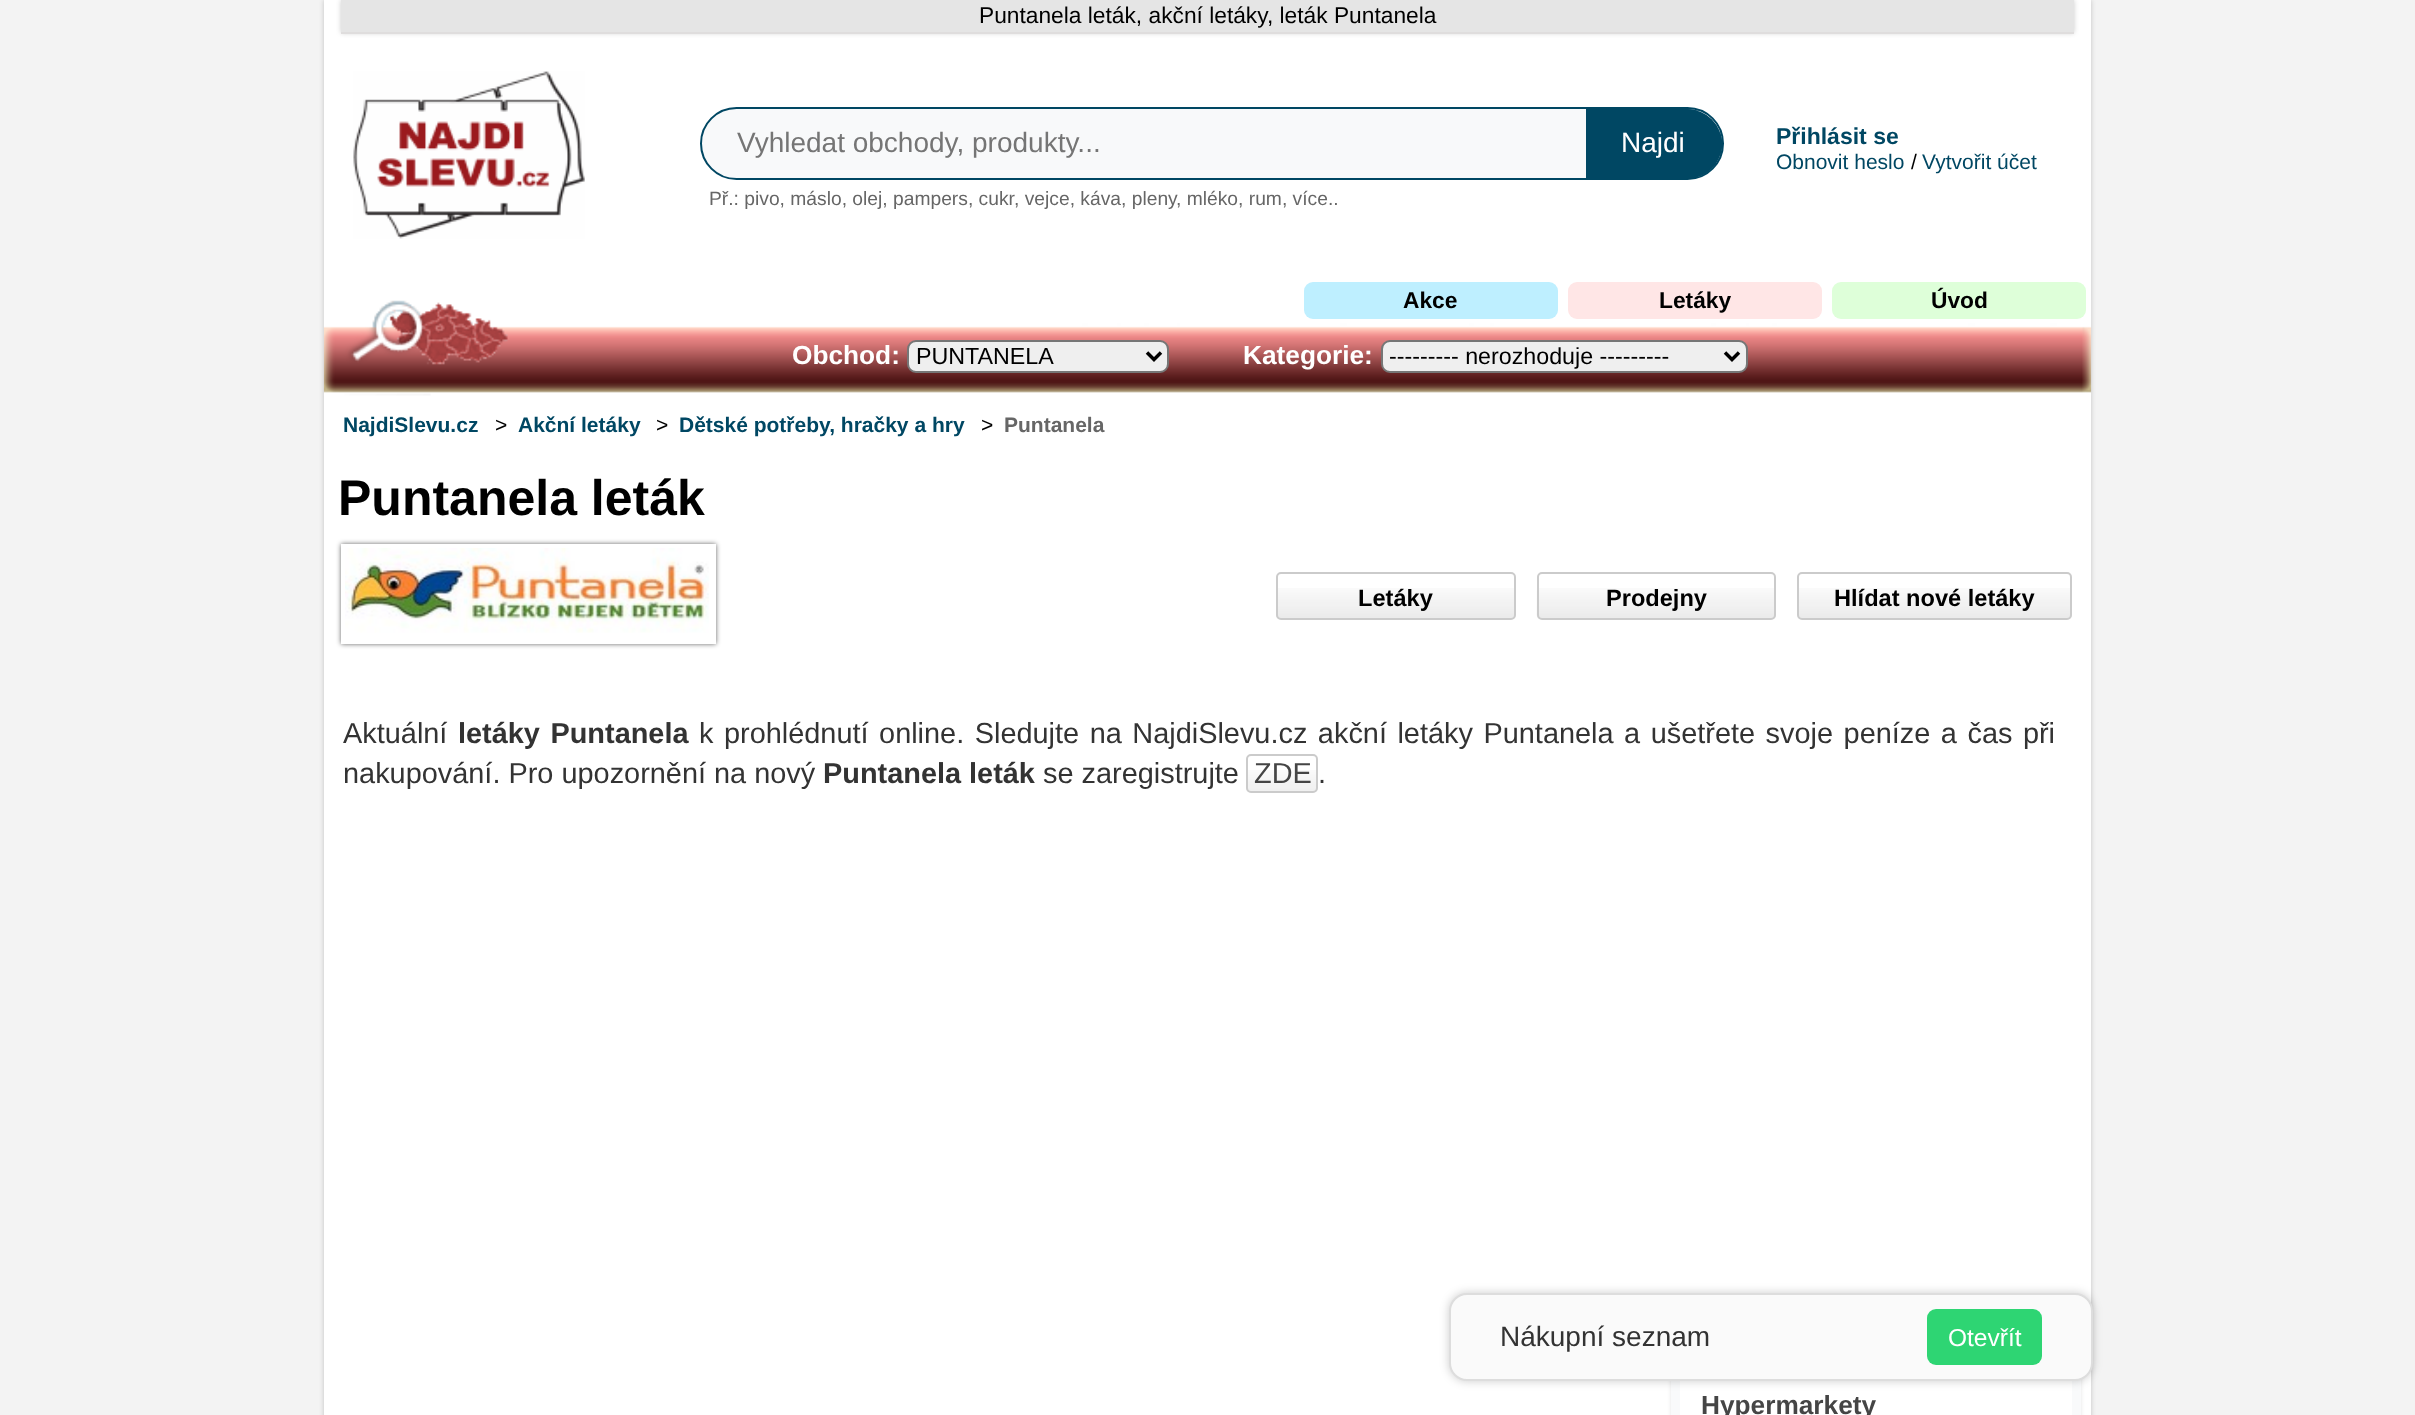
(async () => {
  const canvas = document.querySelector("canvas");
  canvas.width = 2415;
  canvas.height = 1415;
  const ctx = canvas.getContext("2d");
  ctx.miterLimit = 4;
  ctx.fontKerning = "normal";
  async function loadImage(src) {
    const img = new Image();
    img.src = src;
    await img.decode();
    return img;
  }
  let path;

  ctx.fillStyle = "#f3f3f3";
  ctx.fillRect(0, 0, 2415, 1415);
  ctx.fillStyle = "rgba(0, 0, 0, 0.2)";
  ctx.filter = "blur(2.5px)";
  ctx.beginPath();
  ctx.rect(324, 0, 1767, 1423);
  ctx.fill();
  ctx.filter = "none";
  ctx.fillStyle = "#ffffff";
  ctx.fillRect(324, 0, 1767, 1415);
  ctx.fillStyle = "rgba(0, 0, 0, 0.2)";
  ctx.filter = "blur(2.5px)";
  ctx.beginPath();
  ctx.rect(341, 0, 1733, 33);
  ctx.fill();
  ctx.filter = "none";
  ctx.fillStyle = "#e5e5e5";
  ctx.fillRect(341, 0, 1733, 32);
  ctx.fillStyle = "#dfdddd";
  ctx.fillRect(341, 32, 1733, 2);
  ctx.drawImage(await loadImage("img/1.png"), 353, 71, 232, 168);
  ctx.fillStyle = "#f8f9fa";
  ctx.beginPath();
  ctx.roundRect(701, 108, 1022, 71, 35.5);
  ctx.fill();
  ctx.strokeStyle = "#004763";
  ctx.lineWidth = 2;
  ctx.stroke();
  ctx.fillStyle = "#004763";
  ctx.beginPath();
  ctx.roundRect(1586, 109, 136, 70, [0, 35, 35, 0]);
  ctx.fill();
  path = new Path2D("M1586 109V179H1687C1691 179 1695 178 1699 177H1588V111H1699C1695 110 1691 109 1687 109ZM1720 132V156C1723 148 1723 140 1720 132Z");
  ctx.fill(path, "evenodd");
  ctx.drawImage(await loadImage("img/2.png"), 323, 300, 1769, 96);
  ctx.fillStyle = "#beefff";
  ctx.beginPath();
  ctx.roundRect(1304, 282, 254, 37, 9);
  ctx.fill();
  ctx.fillStyle = "#ffe6e6";
  ctx.beginPath();
  ctx.roundRect(1568, 282, 254, 37, 9);
  ctx.fill();
  ctx.fillStyle = "#deffd9";
  ctx.beginPath();
  ctx.roundRect(1832, 282, 254, 37, 9);
  ctx.fill();
  ctx.fillStyle = "#efefef";
  ctx.beginPath();
  ctx.roundRect(908, 341, 260, 31, 8);
  ctx.fill();
  ctx.strokeStyle = "#767676";
  ctx.stroke();
  path = new Path2D("M1147 352.5L1154 359.5L1161 352.5");
  ctx.strokeStyle = "#000000";
  ctx.lineWidth = 3.5;
  ctx.stroke(path);
  ctx.beginPath();
  ctx.roundRect(1382, 341, 365, 31, 8);
  ctx.fill();
  ctx.strokeStyle = "#767676";
  ctx.lineWidth = 2;
  ctx.stroke();
  path = new Path2D("M1725 352.5L1732 359.5L1739 352.5");
  ctx.strokeStyle = "#000000";
  ctx.lineWidth = 3.5;
  ctx.stroke(path);
  ctx.save();
  path = new Path2D("M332 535H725V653H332ZM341 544H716V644H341Z");
  ctx.clip(path, "evenodd");
  ctx.fillStyle = "rgba(0, 0, 0, 0.6)";
  ctx.filter = "blur(2.5px)";
  ctx.beginPath();
  ctx.rect(341, 544, 375, 100);
  ctx.fill();
  ctx.filter = "none";
  ctx.restore();
  ctx.drawImage(await loadImage("img/3.png"), 345, 548, 364, 85);
  ctx.drawImage(await loadImage("img/4.png"), 1276, 588, 240, 32);
  ctx.beginPath();
  ctx.roundRect(1277, 573, 238, 46, 4);
  ctx.strokeStyle = "#cbcbcb";
  ctx.lineWidth = 2;
  ctx.stroke();
  ctx.drawImage(await loadImage("img/5.png"), 1536, 588, 240, 32);
  ctx.beginPath();
  ctx.roundRect(1538, 573, 237, 46, 4);
  ctx.stroke();
  ctx.drawImage(await loadImage("img/6.png"), 1797, 588, 275, 32);
  ctx.beginPath();
  ctx.roundRect(1798, 573, 273, 46, 4);
  ctx.stroke();
  ctx.drawImage(await loadImage("img/7.png"), 1246, 770, 72, 23);
  ctx.beginPath();
  ctx.roundRect(1247, 755, 70, 37, 4);
  ctx.stroke();
  ctx.fillStyle = "rgba(0, 0, 0, 0.1)";
  ctx.filter = "blur(2px)";
  ctx.beginPath();
  ctx.roundRect(1671, 1363, 410, 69, 11);
  ctx.fill();
  ctx.filter = "none";
  ctx.fillStyle = "#f9fafb";
  ctx.fillRect(1671, 1380, 410, 35);
  ctx.fillStyle = "#ffffff";
  ctx.beginPath();
  ctx.roundRect(1680, 1372, 392, 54, 11);
  ctx.fill();
  ctx.fillStyle = "rgba(0, 0, 0, 0.2)";
  ctx.filter = "blur(5px)";
  ctx.beginPath();
  ctx.roundRect(1449, 1293, 644, 88, 18);
  ctx.fill();
  ctx.filter = "none";
  ctx.fillStyle = "#fafafa";
  ctx.beginPath();
  ctx.roundRect(1450, 1294, 642, 86, 17);
  ctx.fill();
  ctx.strokeStyle = "#dddddd";
  ctx.stroke();
  ctx.fillStyle = "#2ed573";
  ctx.beginPath();
  ctx.roundRect(1927, 1309, 115, 56, 9);
  ctx.fill();
  ctx.font = "22.75px Liberation Sans";
  ctx.fillStyle = "#000000";
  ctx.fillText("Puntanela leták, akční letáky, leták Puntanela", 979, 23);
  ctx.font = "28px Liberation Sans";
  ctx.fillStyle = "#757575";
  ctx.fillText("Vyhledat obchody, produkty...", 737, 152);
  ctx.fillStyle = "#ffffff";
  ctx.fillText("Najdi", 1621, 152);
  ctx.font = "19.25px Liberation Sans";
  ctx.fillStyle = "#666666";
  for (const [text, x, y] of [
    ["Př.: pivo, máslo, olej, pampers, cukr", 709, 205],
    [", vejce, káva, pleny", 1014, 205],
    [", mléko, rum, více..", 1176, 205],
  ]) {
    ctx.fillText(text, x, y);
  }
  ctx.font = "bold 23px Liberation Sans";
  ctx.fillStyle = "#004763";
  ctx.fillText("Přihlásit se", 1776, 144);
  ctx.font = "21px Liberation Sans";
  ctx.fillText("Obnovit heslo", 1776, 169);
  ctx.fillStyle = "#000000";
  ctx.fillText("/", 1911, 169);
  ctx.fillStyle = "#004763";
  ctx.fillText("Vytvořit účet", 1922, 169);
  ctx.font = "bold 22.75px Liberation Sans";
  ctx.fillStyle = "#000000";
  for (const [text, x, y] of [
    ["Akce", 1403, 308],
    ["Letáky", 1659, 308],
    ["Úvod", 1931, 308],
  ]) {
    ctx.fillText(text, x, y);
  }
  ctx.font = "bold 26.25px Liberation Sans";
  ctx.fillStyle = "#ffffff";
  ctx.fillText("Obchod:", 792, 364);
  ctx.font = "23.25px Liberation Sans";
  ctx.fillStyle = "#000000";
  ctx.fillText("PUNTANELA", 916, 364);
  ctx.font = "bold 26.25px Liberation Sans";
  ctx.fillStyle = "#ffffff";
  ctx.fillText("Kategorie:", 1243, 364);
  ctx.font = "23.25px Liberation Sans";
  ctx.fillStyle = "#000000";
  ctx.fillText("--------- nerozhoduje ---------", 1389, 364);
  ctx.font = "bold 21px Liberation Sans";
  ctx.fillStyle = "#004763";
  ctx.fillText("NajdiSlevu.cz", 343, 432);
  ctx.font = "21px Liberation Sans";
  ctx.fillStyle = "#000000";
  ctx.fillText(">", 495, 432);
  ctx.font = "bold 21px Liberation Sans";
  ctx.fillStyle = "#004763";
  ctx.fillText("Akční letáky", 518, 432);
  ctx.font = "21px Liberation Sans";
  ctx.fillStyle = "#000000";
  ctx.fillText(">", 656, 432);
  ctx.font = "bold 21px Liberation Sans";
  ctx.fillStyle = "#004763";
  ctx.fillText("Dětské potřeby, hračky a hry", 679, 432);
  ctx.font = "21px Liberation Sans";
  ctx.fillStyle = "#000000";
  ctx.fillText(">", 981, 432);
  ctx.font = "bold 21px Liberation Sans";
  ctx.fillStyle = "#666666";
  ctx.fillText("Puntanela", 1004, 432);
  ctx.font = "bold 50px Liberation Sans";
  ctx.fillStyle = "#000000";
  ctx.fillText("Puntanela leták", 338, 515);
  ctx.font = "bold 23.6px Liberation Sans";
  for (const [text, x, y] of [
    ["Letáky", 1358, 606],
    ["Prodejny", 1606, 606],
    ["Hlídat nové letáky", 1834, 606],
  ]) {
    ctx.fillText(text, x, y);
  }
  ctx.font = "28.9px Liberation Sans";
  ctx.fillStyle = "#333333";
  ctx.fillText("Aktuální", 343, 743);
  ctx.wordSpacing = "2.5px";
  ctx.font = "bold 28.9px Liberation Sans";
  ctx.fillText("letáky Puntanela", 458, 743);
  ctx.font = "28.9px Liberation Sans";
  ctx.fillText("k prohlédnutí online. Sledujte na NajdiSlevu.cz akční letáky Puntanela a ušetřete svoje peníze a čas při", 699, 743);
  ctx.wordSpacing = "0px";
  ctx.fillText("nakupování. Pro upozornění na nový", 343, 783);
  ctx.font = "bold 28.9px Liberation Sans";
  ctx.fillText("Puntanela leták", 823, 783);
  ctx.font = "28.9px Liberation Sans";
  ctx.fillText("se zaregistrujte", 1043, 783);
  ctx.fillStyle = "#454545";
  ctx.fillText("ZDE", 1254, 783);
  ctx.fillStyle = "#333333";
  ctx.fillText(".", 1318, 783);
  ctx.font = "bold 26.25px Liberation Sans";
  ctx.fillStyle = "#454545";
  ctx.fillText("Hypermarkety", 1701, 1414);
  ctx.font = "28px Liberation Sans";
  ctx.fillStyle = "#333333";
  ctx.fillText("Nákupní seznam", 1500, 1346);
  ctx.font = "24.5px Liberation Sans";
  ctx.fillStyle = "#ffffff";
  ctx.fillText("Otevřít", 1948, 1346);
})();
